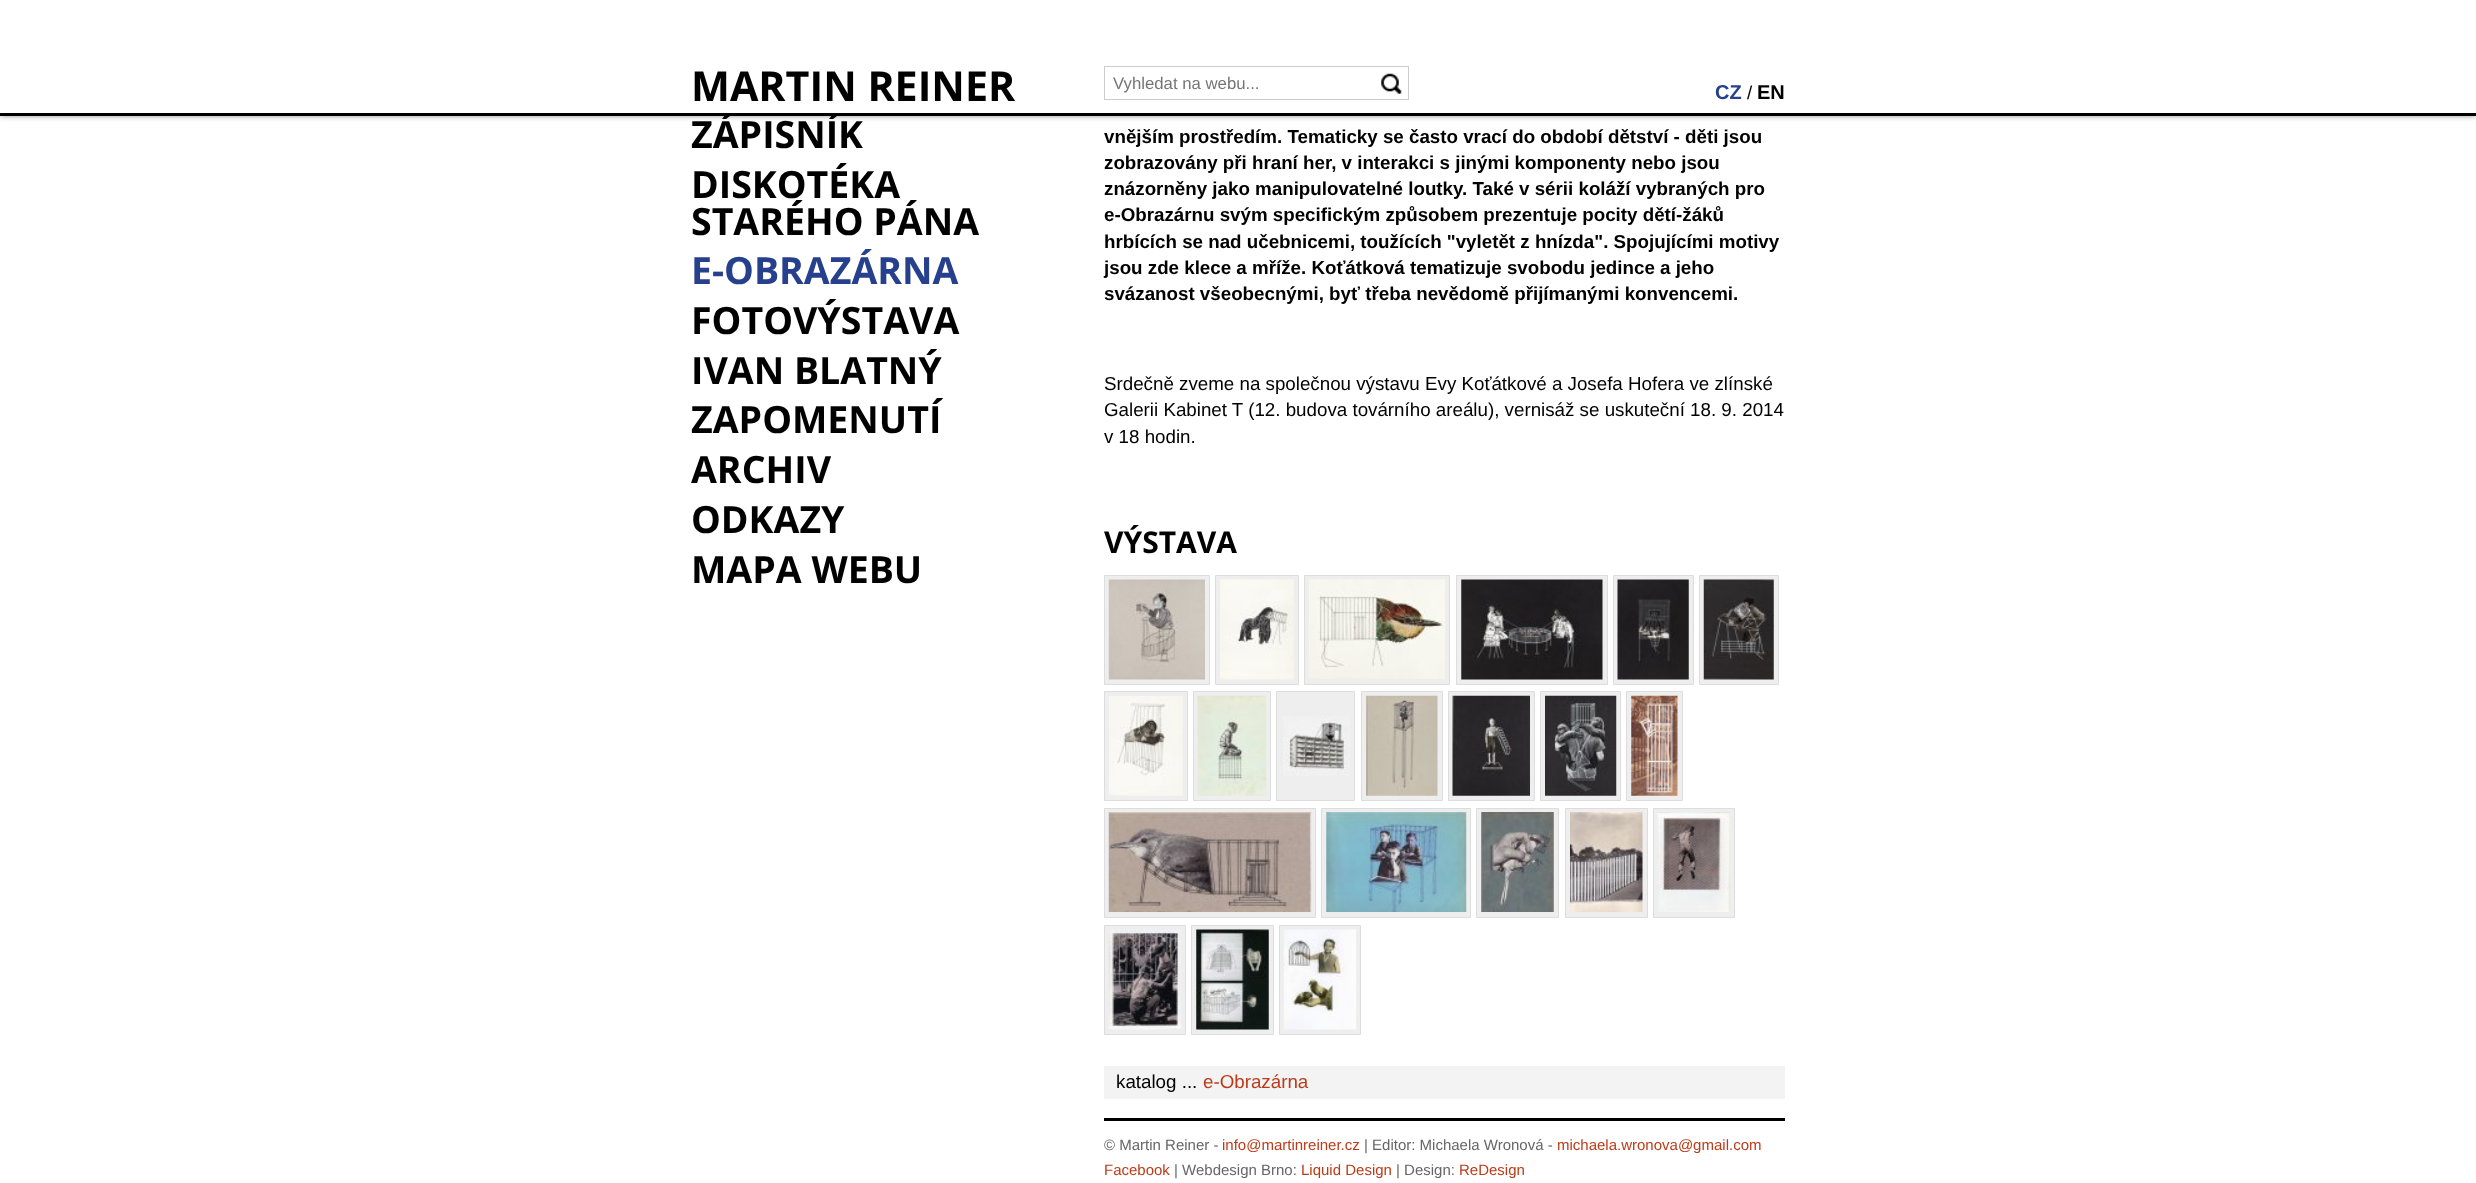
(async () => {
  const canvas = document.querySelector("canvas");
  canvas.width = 2476;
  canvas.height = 1183;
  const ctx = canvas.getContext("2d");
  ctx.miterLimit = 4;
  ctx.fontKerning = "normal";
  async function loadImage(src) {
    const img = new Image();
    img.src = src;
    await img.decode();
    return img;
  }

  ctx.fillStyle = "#ffffff";
  ctx.fillRect(0, 0, 2476, 1183);
  ctx.fillStyle = "#666666";
  ctx.filter = "blur(3px)";
  ctx.beginPath();
  ctx.rect(0, 0, 2476, 115);
  ctx.fill();
  ctx.filter = "none";
  ctx.fillStyle = "#ffffff";
  ctx.fillRect(0, 0, 2476, 113);
  ctx.fillStyle = "#000000";
  ctx.fillRect(0, 113, 2476, 3);
  ctx.drawImage(await loadImage("img/1.png"), 1381, 73, 21, 21);
  ctx.strokeStyle = "#cccccc";
  ctx.strokeRect(1104.5, 66.5, 304, 33);
  ctx.fillRect(1104, 1118, 681, 3);
  ctx.fillStyle = "#eeeeee";
  ctx.beginPath();
  ctx.rect(1104.5, 575.5, 105, 109);
  ctx.fill();
  ctx.strokeStyle = "#dddddd";
  ctx.stroke();
  ctx.beginPath();
  ctx.rect(1215.5, 575.5, 83, 109);
  ctx.fill();
  ctx.stroke();
  ctx.beginPath();
  ctx.rect(1304.5, 575.5, 145, 109);
  ctx.fill();
  ctx.stroke();
  ctx.beginPath();
  ctx.rect(1456.5, 575.5, 151, 109);
  ctx.fill();
  ctx.stroke();
  ctx.beginPath();
  ctx.rect(1613.5, 575.5, 80, 109);
  ctx.fill();
  ctx.stroke();
  ctx.beginPath();
  ctx.rect(1699.5, 575.5, 79, 109);
  ctx.fill();
  ctx.stroke();
  ctx.drawImage(await loadImage("img/2.png"), 1108, 579, 97, 101);
  ctx.drawImage(await loadImage("img/3.png"), 1220, 579, 74, 101);
  ctx.drawImage(await loadImage("img/4.png"), 1309, 579, 136, 100);
  ctx.drawImage(await loadImage("img/5.png"), 1461, 579, 142, 101);
  ctx.drawImage(await loadImage("img/6.png"), 1617, 579, 72, 101);
  ctx.drawImage(await loadImage("img/7.png"), 1703, 579, 71, 101);
  ctx.beginPath();
  ctx.rect(1104.5, 691.5, 83, 109);
  ctx.fill();
  ctx.stroke();
  ctx.beginPath();
  ctx.rect(1193.5, 691.5, 77, 109);
  ctx.fill();
  ctx.stroke();
  ctx.beginPath();
  ctx.rect(1276.5, 691.5, 78, 109);
  ctx.fill();
  ctx.stroke();
  ctx.beginPath();
  ctx.rect(1361.5, 691.5, 81, 109);
  ctx.fill();
  ctx.stroke();
  ctx.beginPath();
  ctx.rect(1448.5, 691.5, 86, 109);
  ctx.fill();
  ctx.stroke();
  ctx.beginPath();
  ctx.rect(1540.5, 691.5, 80, 109);
  ctx.fill();
  ctx.stroke();
  ctx.beginPath();
  ctx.rect(1626.5, 691.5, 56, 109);
  ctx.fill();
  ctx.stroke();
  ctx.drawImage(await loadImage("img/8.png"), 1109, 696, 74, 100);
  ctx.drawImage(await loadImage("img/9.png"), 1197, 695, 70, 101);
  ctx.drawImage(await loadImage("img/10.png"), 1281, 716, 69, 60);
  ctx.drawImage(await loadImage("img/11.png"), 1366, 695, 72, 101);
  ctx.drawImage(await loadImage("img/12.png"), 1452, 695, 78, 101);
  ctx.drawImage(await loadImage("img/13.png"), 1545, 695, 72, 101);
  ctx.drawImage(await loadImage("img/14.png"), 1631, 695, 47, 101);
  ctx.beginPath();
  ctx.rect(1104.5, 808.5, 211, 109);
  ctx.fill();
  ctx.stroke();
  ctx.beginPath();
  ctx.rect(1321.5, 808.5, 149, 109);
  ctx.fill();
  ctx.stroke();
  ctx.beginPath();
  ctx.rect(1476.5, 808.5, 82, 109);
  ctx.fill();
  ctx.stroke();
  ctx.beginPath();
  ctx.rect(1565.5, 808.5, 82, 109);
  ctx.fill();
  ctx.stroke();
  ctx.beginPath();
  ctx.rect(1653.5, 808.5, 81, 109);
  ctx.fill();
  ctx.stroke();
  ctx.drawImage(await loadImage("img/15.png"), 1108, 812, 204, 100);
  ctx.drawImage(await loadImage("img/16.png"), 1326, 812, 141, 100);
  ctx.drawImage(await loadImage("img/17.png"), 1481, 812, 73, 100);
  ctx.drawImage(await loadImage("img/18.png"), 1570, 812, 73, 100);
  ctx.drawImage(await loadImage("img/19.png"), 1657, 812, 73, 100);
  ctx.beginPath();
  ctx.rect(1104.5, 925.5, 81, 109);
  ctx.fill();
  ctx.stroke();
  ctx.beginPath();
  ctx.rect(1191.5, 925.5, 82, 109);
  ctx.fill();
  ctx.stroke();
  ctx.beginPath();
  ctx.rect(1279.5, 925.5, 81, 109);
  ctx.fill();
  ctx.stroke();
  ctx.drawImage(await loadImage("img/20.png"), 1108, 929, 73, 101);
  ctx.drawImage(await loadImage("img/21.png"), 1196, 929, 73, 101);
  ctx.drawImage(await loadImage("img/22.png"), 1283, 929, 74, 101);
  ctx.fillStyle = "#f3f3f3";
  ctx.fillRect(1104, 1066, 681, 33);
  ctx.font = "bold 41.25px Open Sans";
  ctx.fillStyle = "#000000";
  ctx.fillText("MARTIN REINER", 691, 101);
  ctx.font = "16.75px Liberation Sans";
  ctx.fillStyle = "#757575";
  ctx.fillText("Vyhledat na webu...", 1113, 89);
  ctx.font = "bold 20px Liberation Sans";
  ctx.fillStyle = "#26408d";
  ctx.fillText("CZ", 1715, 99);
  ctx.font = "18.75px Liberation Sans";
  ctx.fillStyle = "#000000";
  ctx.fillText("/", 1747, 99);
  ctx.font = "bold 20px Liberation Sans";
  ctx.fillText("EN", 1757, 99);
  ctx.font = "bold 37.5px Open Sans";
  for (const [text, x, y] of [
    ["ZÁPISNÍK", 691, 148],
    ["DISKOTÉKA", 691, 198],
    ["STARÉHO PÁNA", 691, 235],
  ]) {
    ctx.fillText(text, x, y);
  }
  ctx.fillStyle = "#26408d";
  ctx.fillText("E-OBRAZÁRNA", 691, 284);
  ctx.fillStyle = "#000000";
  for (const [text, x, y] of [
    ["FOTOVÝSTAVA", 691, 334],
    ["IVAN BLATNÝ", 691, 384],
    ["ZAPOMENUTÍ", 691, 433],
    ["ARCHIV", 691, 483],
    ["ODKAZY", 691, 533],
    ["MAPA WEBU", 691, 583],
  ]) {
    ctx.fillText(text, x, y);
  }
  ctx.font = "bold 18.75px Liberation Sans";
  for (const [text, x, y] of [
    ["vnějším prostředím. Tematicky se často vrací do období dětství - děti jsou", 1104, 143],
    ["zobrazovány při hraní her, v interakci s jinými komponenty nebo jsou", 1104, 169],
    ["znázorněny jako manipulovatelné loutky. Také v sérii koláží vybraných pro", 1104, 195],
    ["e-Obrazárnu svým specifickým způsobem prezentuje pocity dětí-žáků", 1104, 221],
    ["hrbících se nad učebnicemi, toužících \"vyletět z hnízda\". Spojujícími motivy", 1104, 248],
    ["jsou zde klece a mříže. Koťátková tematizuje svobodu jedince a jeho", 1104, 274],
    ["svázanost všeobecnými, byť třeba nevědomě přijímanými konvencemi.", 1104, 300],
  ]) {
    ctx.fillText(text, x, y);
  }
  ctx.font = "18.75px Liberation Sans";
  for (const [text, x, y] of [
    ["Srdečně zveme na společnou výstavu Evy Koťátkové a Josefa Hofera ve zlínské", 1104, 390],
    ["Galerii Kabinet T (12. budova továrního areálu), vernisáž se uskuteční 18. 9. 2014", 1104, 416],
    ["v 18 hodin.", 1104, 443],
  ]) {
    ctx.fillText(text, x, y);
  }
  ctx.font = "bold 30px Open Sans";
  ctx.fillText("VÝSTAVA", 1104, 553);
  ctx.font = "18.75px Liberation Sans";
  ctx.fillText("katalog ...", 1116, 1088);
  ctx.fillStyle = "#bb3b19";
  ctx.fillText("e-Obrazárna", 1203, 1088);
  ctx.font = "15px Liberation Sans";
  ctx.fillStyle = "#666666";
  ctx.fillText("© Martin Reiner -", 1104, 1150);
  ctx.fillStyle = "#bb3b19";
  ctx.fillText("info@martinreiner.cz", 1222, 1150);
  ctx.fillStyle = "#666666";
  ctx.fillText("| Editor: Michaela Wronová -", 1364, 1150);
  ctx.fillStyle = "#bb3b19";
  ctx.fillText("michaela.wronova@gmail.com", 1557, 1150);
  ctx.fillText("Facebook", 1104, 1175);
  ctx.fillStyle = "#666666";
  ctx.fillText("| Webdesign Brno:", 1174, 1175);
  ctx.fillStyle = "#bb3b19";
  ctx.fillText("Liquid Design", 1301, 1175);
  ctx.fillStyle = "#666666";
  ctx.fillText("| Design:", 1396, 1175);
  ctx.fillStyle = "#bb3b19";
  ctx.fillText("ReDesign", 1459, 1175);
})();
